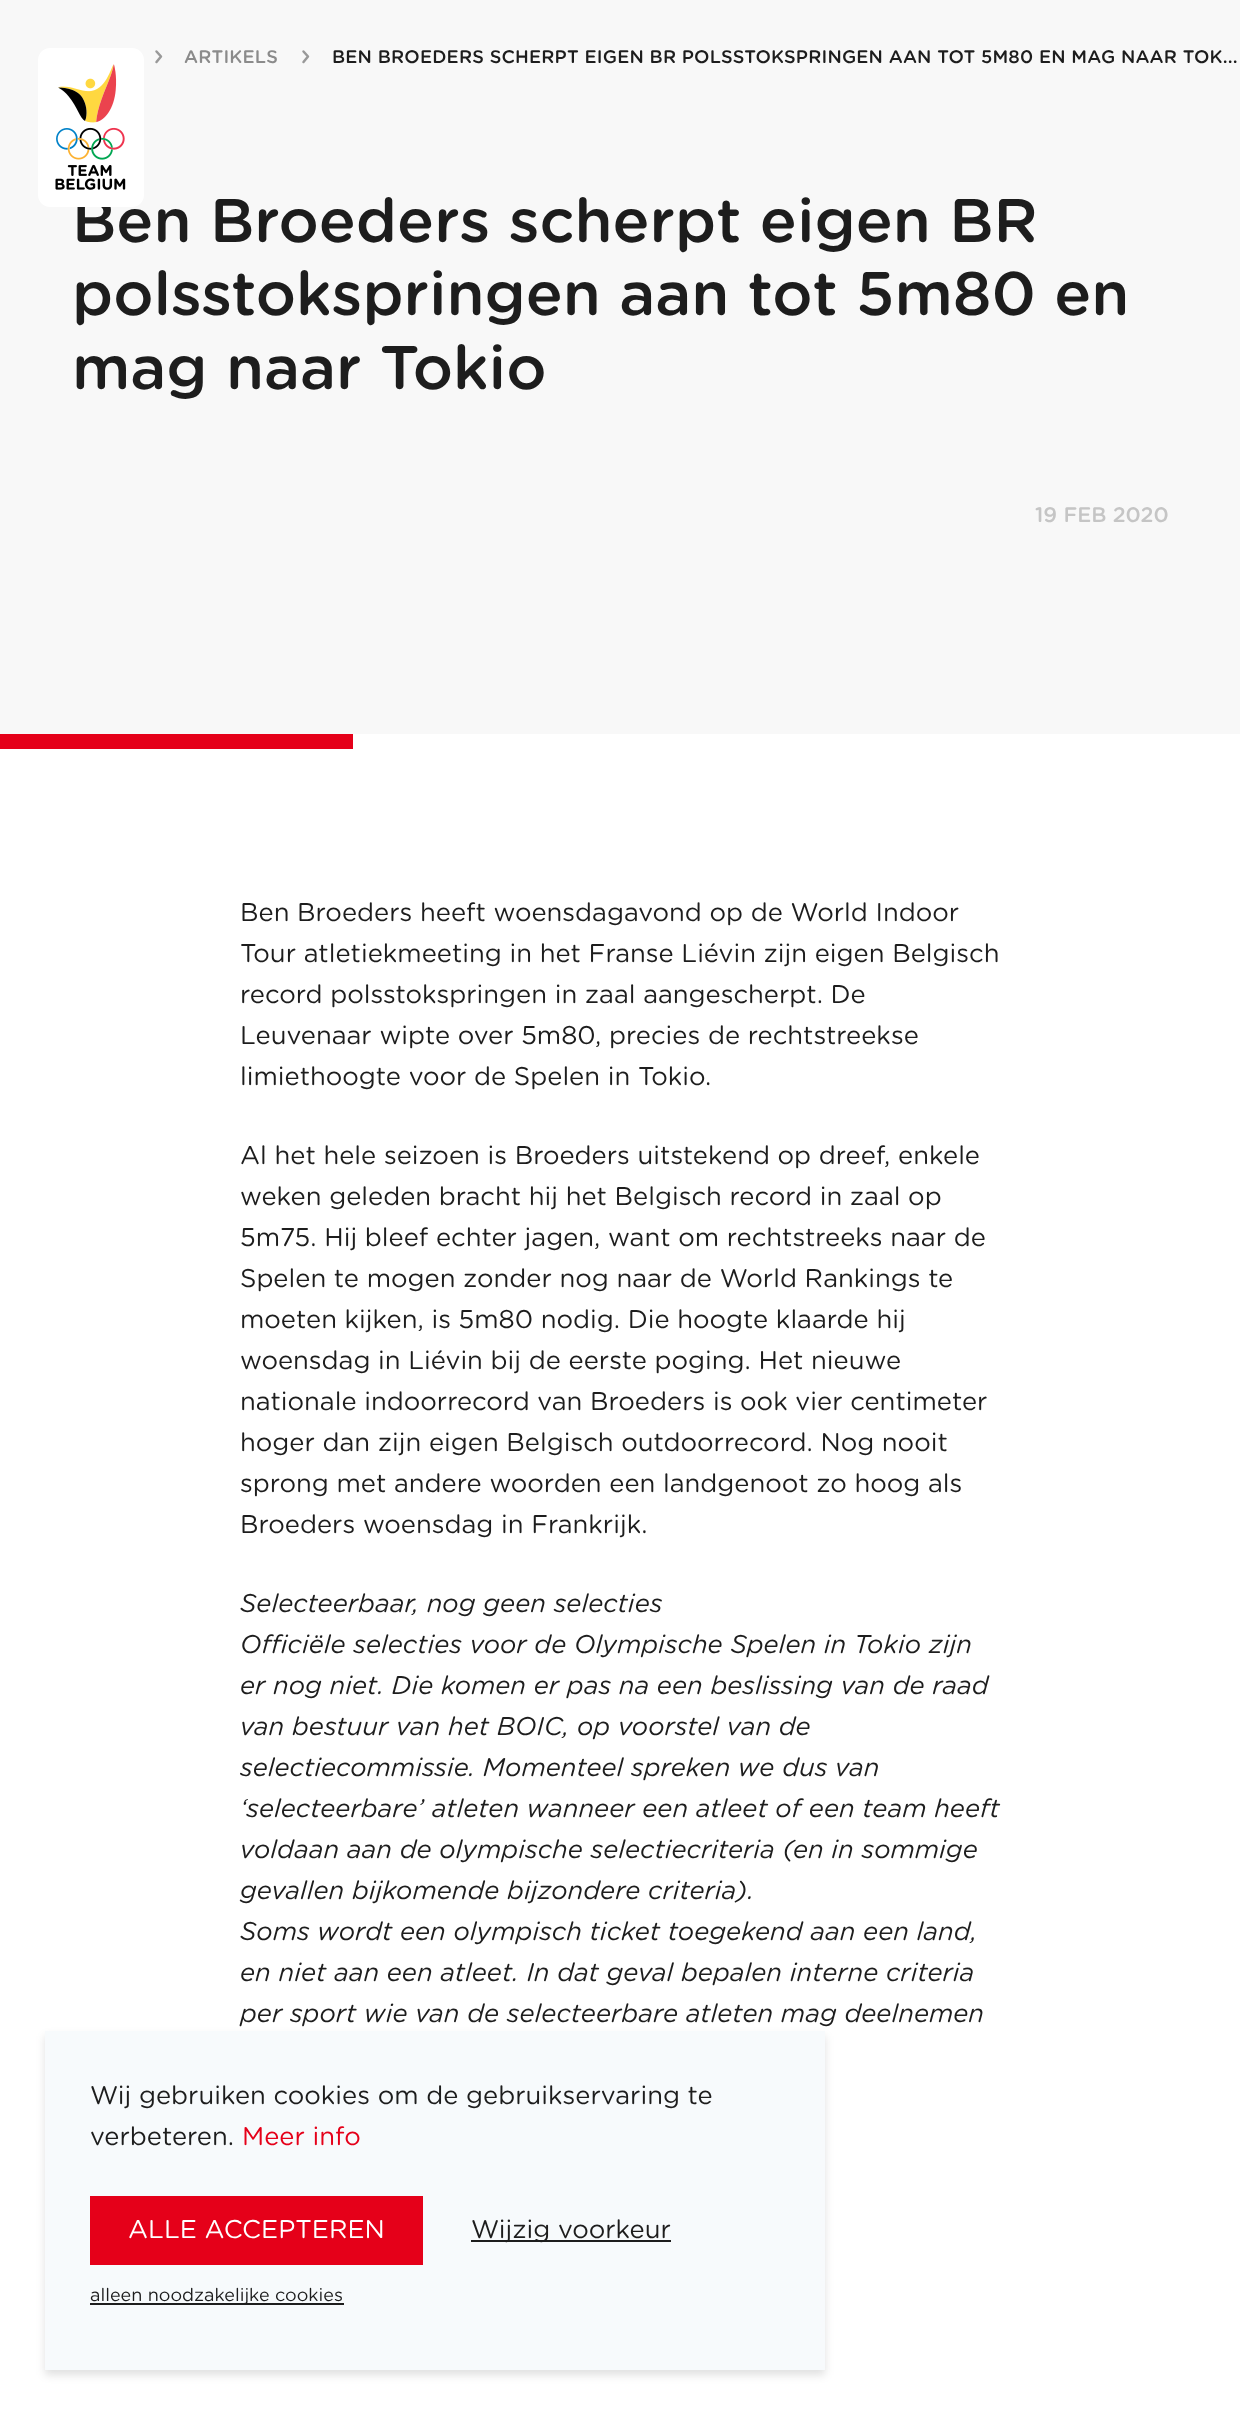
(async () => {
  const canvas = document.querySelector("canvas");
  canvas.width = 1240;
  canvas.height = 2414;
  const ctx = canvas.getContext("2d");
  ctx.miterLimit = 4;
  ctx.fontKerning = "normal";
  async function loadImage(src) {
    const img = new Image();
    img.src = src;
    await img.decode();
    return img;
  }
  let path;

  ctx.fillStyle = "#ffffff";
  ctx.fillRect(0, 0, 1240, 2414);
  ctx.fillStyle = "#f8f8f8";
  ctx.fillRect(0, 0, 1240, 734);
  path = new Path2D("M156.5 51.5L161 56.5L156.5 62");
  ctx.strokeStyle = "#999999";
  ctx.lineWidth = 2.5;
  ctx.lineCap = "round";
  ctx.lineJoin = "round";
  ctx.stroke(path);
  path = new Path2D("M303.5 51.5L308 56.5L303.5 62");
  ctx.stroke(path);
  ctx.fillStyle = "#e50019";
  ctx.fillRect(0, 734, 353, 15);
  ctx.fillStyle = "rgba(0, 0, 0, 0.12)";
  ctx.filter = "blur(4.5px)";
  ctx.beginPath();
  ctx.rect(45, 2036, 780, 339);
  ctx.fill();
  ctx.filter = "none";
  for (const [x, y, w, h, color] of [
    [45, 2031, 780, 339, "#f7fafc"],
    [90, 2196, 333, 69, "#e50019"],
    [471, 2240, 200, 2, "#1d1d1d"],
    [90, 2303, 254, 2, "#1d1d1d"],
  ]) {
    ctx.fillStyle = color;
    ctx.fillRect(x, y, w, h);
  }
  ctx.letterSpacing = "0.18px";
  ctx.font = "500 18.15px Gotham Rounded";
  ctx.fillStyle = "#8b8b8b";
  ctx.fillText("ARTIKELS", 184, 63);
  ctx.fillStyle = "#1d1d1d";
  ctx.fillText("BEN BROEDERS SCHERPT EIGEN BR POLSSTOKSPRINGEN AAN TOT 5M80 EN MAG NAAR TOK...", 332, 63);
  ctx.letterSpacing = "0px";
  ctx.font = "500 61.4px Gotham Rounded";
  ctx.fillText("Ben Broeders scherpt eigen BR", 72, 242);
  ctx.drawImage(await loadImage("img/1.png"), 38, 48, 106, 159);
  ctx.fillText("polsstokspringen aan tot 5m80 en", 72, 315);
  ctx.fillText("mag naar Tokio", 72, 389);
  ctx.font = "500 21px Gotham Rounded";
  ctx.fillStyle = "#c5c5c5";
  ctx.fillText("19 FEB 2020", 1035, 522);
  ctx.font = "25.6px Gotham Rounded";
  ctx.fillStyle = "#1d1d1d";
  for (const [text, x, y] of [
    ["Ben Broeders heeft woensdagavond op de World Indoor", 240, 921],
    ["Tour atletiekmeeting in het Franse Liévin zijn eigen Belgisch", 240, 962],
    ["record polsstokspringen in zaal aangescherpt. De", 240, 1003],
    ["Leuvenaar wipte over 5m80, precies de rechtstreekse", 240, 1044],
    ["limiethoogte voor de Spelen in Tokio.", 240, 1085],
    ["Al het hele seizoen is Broeders uitstekend op dreef, enkele", 240, 1164],
    ["weken geleden bracht hij het Belgisch record in zaal op", 240, 1205],
    ["5m75. Hij bleef echter jagen, want om rechtstreeks naar de", 240, 1246],
    ["Spelen te mogen zonder nog naar de World Rankings te", 240, 1287],
    ["moeten kijken, is 5m80 nodig. Die hoogte klaarde hij", 240, 1328],
    ["woensdag in Liévin bij de eerste poging. Het nieuwe", 240, 1369],
    ["nationale indoorrecord van Broeders is ook vier centimeter", 240, 1410],
    ["hoger dan zijn eigen Belgisch outdoorrecord. Nog nooit", 240, 1451],
    ["sprong met andere woorden een landgenoot zo hoog als", 240, 1492],
    ["Broeders woensdag in Frankrijk.", 240, 1533],
  ]) {
    ctx.fillText(text, x, y);
  }
  ctx.font = "italic 25.6px Gotham Rounded";
  for (const [text, x, y] of [
    ["Selecteerbaar, nog geen selecties", 240, 1612],
    ["Officiële selecties voor de Olympische Spelen in Tokio zijn", 240, 1653],
    ["er nog niet. Die komen er pas na een beslissing van de raad", 240, 1694],
    ["van bestuur van het BOIC, op voorstel van de", 240, 1735],
    ["selectiecommissie. Momenteel spreken we dus van", 240, 1776],
    ["‘selecteerbare’ atleten wanneer een atleet of een team heeft", 240, 1817],
    ["voldaan aan de olympische selectiecriteria (en in sommige", 240, 1858],
    ["gevallen bijkomende bijzondere criteria).", 240, 1899],
    ["Soms wordt een olympisch ticket toegekend aan een land,", 240, 1940],
    ["en niet aan een atleet. In dat geval bepalen interne criteria", 240, 1981],
    ["per sport wie van de selecteerbare atleten mag deelnemen", 240, 2022],
  ]) {
    ctx.fillText(text, x, y);
  }
  ctx.font = "25.6px Gotham Rounded";
  ctx.fillText("Wij gebruiken cookies om de gebruikservaring te", 90, 2104);
  ctx.fillText("verbeteren.", 90, 2145);
  ctx.fillStyle = "#e50019";
  ctx.fillText("Meer info", 242, 2145);
  ctx.fillStyle = "#ffffff";
  ctx.fillText("ALLE ACCEPTEREN", 128, 2238);
  ctx.fillStyle = "#1d1d1d";
  ctx.fillText("Wijzig voorkeur", 471, 2238);
  ctx.font = "18px Gotham Rounded";
  ctx.fillText("alleen noodzakelijke cookies", 90, 2301);
})();
